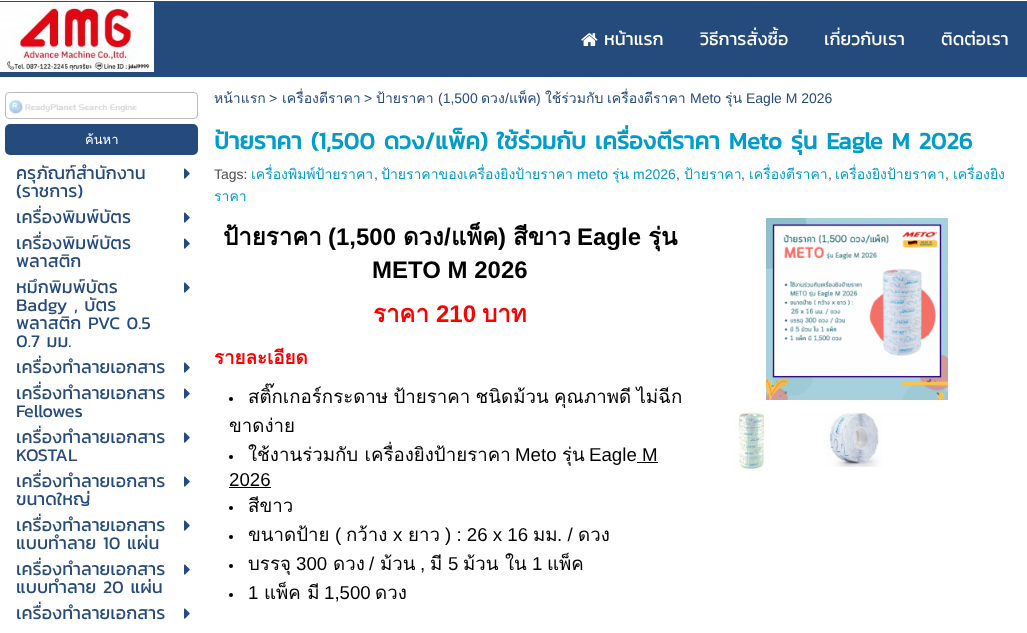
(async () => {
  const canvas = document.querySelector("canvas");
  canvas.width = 1027;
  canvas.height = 633;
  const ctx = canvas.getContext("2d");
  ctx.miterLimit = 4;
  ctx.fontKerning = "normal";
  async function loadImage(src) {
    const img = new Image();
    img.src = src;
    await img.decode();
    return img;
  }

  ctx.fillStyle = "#ffffff";
  ctx.fillRect(0, 0, 1027, 633);
  ctx.fillStyle = "#254b7c";
  ctx.fillRect(0, 1, 1027, 76);
  ctx.drawImage(await loadImage("img/1.png"), 0, 2, 154, 70);
  ctx.drawImage(await loadImage("img/2.png"), 581, 33, 17, 13);
  ctx.drawImage(await loadImage("img/3.png"), 9, 100, 128, 14);
  ctx.beginPath();
  ctx.roundRect(5.5, 92.5, 192, 26, 3.5);
  ctx.strokeStyle = "#bbbbbb";
  ctx.stroke();
  ctx.beginPath();
  ctx.roundRect(5, 124, 193, 31, 5);
  ctx.fill();
  ctx.drawImage(await loadImage("img/4.png"), 184, 168, 6, 11);
  ctx.drawImage(await loadImage("img/4.png"), 184, 212, 6, 11);
  ctx.drawImage(await loadImage("img/4.png"), 184, 238, 6, 11);
  ctx.drawImage(await loadImage("img/4.png"), 184, 282, 6, 11);
  ctx.drawImage(await loadImage("img/4.png"), 184, 362, 6, 11);
  ctx.drawImage(await loadImage("img/4.png"), 184, 388, 6, 11);
  ctx.drawImage(await loadImage("img/4.png"), 184, 432, 6, 11);
  ctx.drawImage(await loadImage("img/4.png"), 184, 476, 6, 11);
  ctx.drawImage(await loadImage("img/4.png"), 184, 520, 6, 11);
  ctx.drawImage(await loadImage("img/4.png"), 184, 564, 6, 11);
  ctx.drawImage(await loadImage("img/4.png"), 184, 608, 6, 11);
  ctx.fillStyle = "#000000";
  ctx.beginPath();
  ctx.arc(231, 399, 2, 0, Math.PI * 2);
  ctx.fill();
  ctx.beginPath();
  ctx.arc(231, 457, 2, 0, Math.PI * 2);
  ctx.fill();
  ctx.fillRect(637, 462, 21, 1);
  ctx.fillRect(229, 487, 42, 1);
  ctx.beginPath();
  ctx.arc(231, 508, 2, 0, Math.PI * 2);
  ctx.fill();
  ctx.beginPath();
  ctx.arc(231, 537, 2, 0, Math.PI * 2);
  ctx.fill();
  ctx.beginPath();
  ctx.arc(231, 566, 2, 0, Math.PI * 2);
  ctx.fill();
  ctx.beginPath();
  ctx.arc(231, 595, 2, 0, Math.PI * 2);
  ctx.fill();
  ctx.drawImage(await loadImage("img/5.png"), 766, 218, 182, 182);
  ctx.drawImage(await loadImage("img/6.png"), 734, 412, 36, 59);
  ctx.drawImage(await loadImage("img/7.png"), 824, 412, 58, 55);
  ctx.font = "18px Kanit";
  ctx.fillStyle = "#ffffff";
  for (const [text, x, y] of [
    ["หน้าแรก", 604, 45],
    ["วิธีการสั่งซื้อ", 700, 45],
    ["เกี่ยวกับเรา", 824, 45],
    ["ติดต่อเรา", 941, 45],
  ]) {
    ctx.fillText(text, x, y);
  }
  ctx.font = "14px Loma";
  ctx.fillStyle = "#254b7c";
  ctx.fillText("หน้าแรก", 214, 103);
  ctx.font = "14px Liberation Sans";
  ctx.fillText(">", 269, 103);
  ctx.font = "14px Loma";
  ctx.fillText("เครื่องตีราคา", 282, 103);
  ctx.font = "14px Liberation Sans";
  ctx.fillText(">", 364, 103);
  ctx.font = "14px Loma";
  ctx.fillText("ป้ายราคา", 376, 103);
  ctx.font = "14px Liberation Sans";
  ctx.fillText("(1,500", 438, 103);
  ctx.font = "14px Loma";
  ctx.fillText("ดวง", 481, 103);
  ctx.font = "14px Liberation Sans";
  ctx.fillText("/", 505, 103);
  ctx.font = "14px Loma";
  ctx.fillText("แพ็ค", 509, 103);
  ctx.font = "14px Liberation Sans";
  ctx.fillText(")", 536, 103);
  ctx.font = "14px Loma";
  ctx.fillText("ใช้ร่วมกับ", 545, 103);
  ctx.fillText("เครื่องตีราคา", 607, 103);
  ctx.font = "14px Liberation Sans";
  ctx.fillText("Meto", 690, 103);
  ctx.font = "14px Loma";
  ctx.fillText("รุ่น", 725, 103);
  ctx.font = "14px Liberation Sans";
  ctx.fillText("Eagle M 2026", 746, 103);
  ctx.font = "13px Loma";
  ctx.fillStyle = "#ffffff";
  ctx.fillText("ค้นหา", 85, 144);
  ctx.font = "18px Kanit";
  ctx.fillStyle = "#254b7c";
  for (const [text, x, y] of [
    ["ครุภัณฑ์สำนักงาน", 16, 179],
    ["(ราชการ)", 16, 197],
    ["เครื่องพิมพ์บัตร", 16, 223],
    ["เครื่องพิมพ์บัตร", 16, 249],
    ["พลาสติก", 16, 267],
    ["หมึกพิมพ์บัตร", 16, 293],
    ["Badgy , บัตร", 16, 311],
    ["พลาสติก PVC 0.5", 16, 329],
    ["0.7 มม.", 16, 347],
    ["เครื่องทำลายเอกสาร", 16, 373],
    ["เครื่องทำลายเอกสาร", 16, 399],
    ["Fellowes", 16, 417],
    ["เครื่องทำลายเอกสาร", 16, 443],
    ["KOSTAL", 16, 461],
    ["เครื่องทำลายเอกสาร", 16, 487],
    ["ขนาดใหญ่", 16, 505],
    ["เครื่องทําลายเอกสาร", 16, 531],
    ["แบบทําลาย 10 แผ่น", 16, 549],
    ["เครื่องทําลายเอกสาร", 16, 575],
    ["แบบทําลาย 20 แผ่น", 16, 593],
    ["เครื่องทําลายเอกสาร", 16, 619],
  ]) {
    ctx.fillText(text, x, y);
  }
  ctx.font = "bold 24px Kanit";
  ctx.fillStyle = "#009dca";
  ctx.fillText("ป้ายราคา (1,500 ดวง/แพ็ค) ใช้ร่วมกับ เครื่องตีราคา Meto รุ่น Eagle M 2026", 214, 149);
  ctx.font = "14px Liberation Sans";
  ctx.fillStyle = "#515151";
  ctx.fillText("Tags:", 214, 179);
  ctx.font = "14px Loma";
  ctx.fillStyle = "#009dca";
  ctx.fillText("เครื่องพิมพ์ป้ายราคา", 251, 179);
  ctx.font = "14px Liberation Sans";
  ctx.fillText("meto", 577, 179);
  ctx.font = "14px Loma";
  ctx.fillText("รุ่น", 612, 179);
  ctx.font = "14px Liberation Sans";
  ctx.fillText("m2026", 633, 179);
  ctx.font = "14px Loma";
  for (const [text, x, y] of [
    ["เครื่องตีราคา", 749, 179],
    ["เครื่องยิงป้ายราคา", 835, 179],
    ["เครื่องยิง", 953, 179],
  ]) {
    ctx.fillText(text, x, y);
  }
  ctx.font = "14px Liberation Sans";
  ctx.fillStyle = "#515151";
  ctx.fillText(",", 374, 179);
  ctx.font = "14px Loma";
  ctx.fillStyle = "#009dca";
  ctx.fillText("ป้ายราคาของเครื่องยิงป้ายราคา", 381, 179);
  ctx.font = "14px Liberation Sans";
  ctx.fillStyle = "#515151";
  ctx.fillText(",", 676, 179);
  ctx.font = "14px Loma";
  ctx.fillStyle = "#009dca";
  ctx.fillText("ป้ายราคา", 684, 179);
  ctx.font = "14px Liberation Sans";
  ctx.fillStyle = "#515151";
  for (const [text, x, y] of [
    [",", 741, 179],
    [",", 828, 179],
    [",", 945, 179],
  ]) {
    ctx.fillText(text, x, y);
  }
  ctx.font = "14px Loma";
  ctx.fillStyle = "#009dca";
  ctx.fillText("ราคา", 214, 201);
  ctx.font = "bold 24px Loma";
  ctx.fillStyle = "#000000";
  ctx.fillText("ป้ายราคา", 223, 245);
  ctx.font = "bold 24px Liberation Sans";
  ctx.fillText("(1,500", 328, 245);
  ctx.fillText("/", 444, 245);
  ctx.font = "bold 24px Loma";
  for (const [text, x, y] of [
    ["แพ็ค", 451, 245],
    ["รุ่น", 648, 245],
    ["ดวง", 403, 245],
  ]) {
    ctx.fillText(text, x, y);
  }
  ctx.font = "bold 24px Liberation Sans";
  ctx.fillText(")", 498, 245);
  ctx.font = "bold 24px Loma";
  ctx.fillText("สีขาว", 513, 245);
  ctx.font = "bold 24px Liberation Sans";
  ctx.fillText("Eagle", 577, 245);
  ctx.fillText("METO M 2026", 372, 278);
  ctx.font = "bold 24px Loma";
  ctx.fillStyle = "#ff0000";
  ctx.fillText("ราคา", 373, 322);
  ctx.font = "bold 24px Liberation Sans";
  ctx.fillText("210", 436, 322);
  ctx.font = "bold 24px Loma";
  ctx.fillText("บาท", 482, 322);
  ctx.font = "bold 18.7px Loma";
  ctx.fillText("รายละเอียด", 214, 364);
  ctx.wordSpacing = "-1px";
  ctx.font = "18.7px Loma";
  ctx.fillStyle = "#000000";
  ctx.fillText("สติ๊กเกอร์กระดาษ ป้ายราคา ชนิดม้วน คุณภาพดี ไม่ฉีก", 248, 403);
  ctx.wordSpacing = "0px";
  ctx.fillText("ขาดง่าย", 229, 432);
  ctx.fillText("ใช้งานร่วมกับ เครื่องยิงป้ายราคา", 248, 461);
  ctx.font = "18.7px Liberation Sans";
  ctx.fillText("Meto", 515, 461);
  ctx.font = "18.7px Loma";
  ctx.fillText("รุ่น", 562, 461);
  ctx.font = "18.7px Liberation Sans";
  ctx.fillText("Eagle M", 589, 461);
  ctx.fillText("2026", 229, 486);
  ctx.font = "18.7px Loma";
  ctx.fillText("สีขาว", 248, 512);
  ctx.fillText("ขนาดป้าย", 248, 541);
  ctx.font = "18.7px Liberation Sans";
  ctx.fillText("(", 335, 541);
  ctx.font = "18.7px Loma";
  ctx.fillText("กว้าง", 346, 541);
  ctx.font = "18.7px Liberation Sans";
  ctx.fillText("x", 393, 541);
  ctx.font = "18.7px Loma";
  ctx.fillText("ยาว", 408, 541);
  ctx.font = "18.7px Liberation Sans";
  ctx.fillText(") : 26 x 16", 445, 541);
  ctx.font = "18.7px Loma";
  ctx.fillText("มม", 533, 541);
  ctx.font = "18.7px Liberation Sans";
  ctx.fillText(". /", 557, 541);
  ctx.font = "18.7px Loma";
  ctx.fillText("ดวง", 578, 541);
  ctx.font = "18.7px Liberation Sans";
  ctx.fillText("300", 296, 570);
  ctx.font = "18.7px Loma";
  for (const [text, x, y] of [
    ["แพ็ค", 547, 570],
    ["บรรจุ", 248, 570],
    ["ดวง", 333, 570],
  ]) {
    ctx.fillText(text, x, y);
  }
  ctx.font = "18.7px Liberation Sans";
  ctx.fillText("/", 369, 570);
  ctx.font = "18.7px Loma";
  ctx.fillText("ม้วน", 380, 570);
  ctx.font = "18.7px Liberation Sans";
  ctx.fillText("5", 448, 570);
  ctx.font = "18.7px Loma";
  ctx.fillText("ม้วน ใน", 463, 570);
  ctx.font = "18.7px Liberation Sans";
  ctx.fillText("1", 532, 570);
  ctx.fillText(",", 420, 570);
  ctx.font = "18.7px Loma";
  ctx.fillText("มี", 430, 570);
  ctx.font = "18.7px Liberation Sans";
  ctx.fillText("1", 248, 599);
  ctx.font = "18.7px Loma";
  ctx.fillText("แพ็ค มี", 264, 599);
  ctx.font = "18.7px Liberation Sans";
  ctx.fillText("1,500", 324, 599);
  ctx.font = "18.7px Loma";
  ctx.fillText("ดวง", 375, 599);
})();
